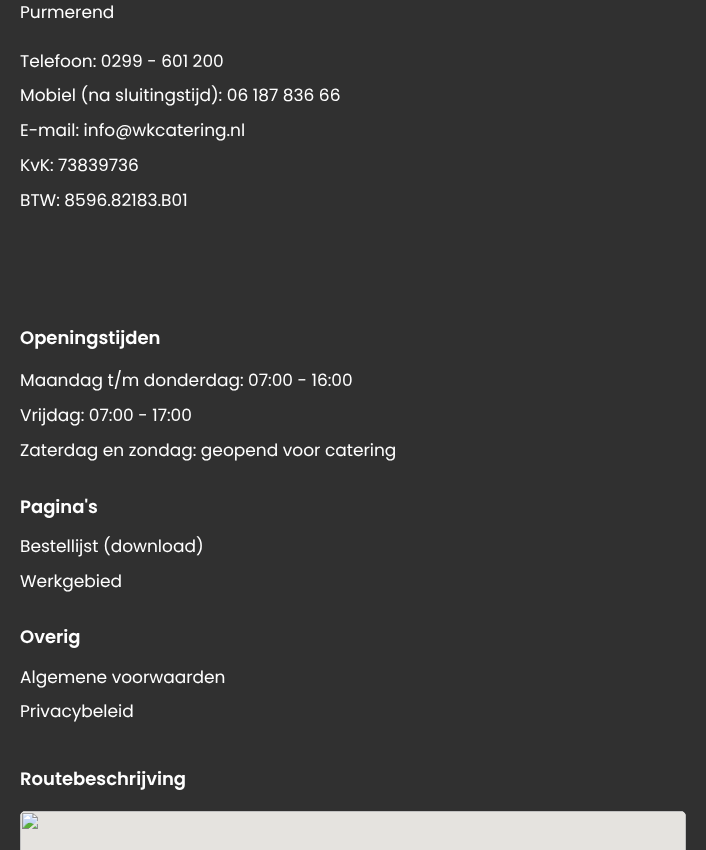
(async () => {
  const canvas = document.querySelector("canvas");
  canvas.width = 706;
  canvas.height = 850;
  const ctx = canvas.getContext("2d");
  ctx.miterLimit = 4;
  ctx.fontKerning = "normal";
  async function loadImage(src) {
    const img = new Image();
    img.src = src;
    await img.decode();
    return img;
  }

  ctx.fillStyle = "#303030";
  ctx.fillRect(0, 0, 706, 850);
  ctx.drawImage(await loadImage("img/1.png"), 20, 811, 666, 39);
  ctx.font = "17px Poppins";
  ctx.fillStyle = "#ffffff";
  for (const [text, x, y] of [
    ["Purmerend", 20, 18],
    ["Telefoon: 0299 - 601 200", 20, 67],
    ["Mobiel (na sluitingstijd): 06 187 836 66", 20, 101],
    ["E-mail: info@wkcatering.nl", 20, 136],
    ["KvK: 73839736", 20, 171],
    ["BTW: 8596.82183.B01", 20, 206],
  ]) {
    ctx.fillText(text, x, y);
  }
  ctx.font = "600 18px Poppins";
  ctx.fillText("Openingstijden", 20, 344);
  ctx.font = "17px Poppins";
  for (const [text, x, y] of [
    ["Maandag t/m donderdag: 07:00 - 16:00", 20, 386],
    ["Vrijdag: 07:00 - 17:00", 20, 421],
    ["Zaterdag en zondag: geopend voor catering", 20, 456],
  ]) {
    ctx.fillText(text, x, y);
  }
  ctx.font = "600 18px Poppins";
  ctx.fillText("Pagina's", 20, 513);
  ctx.font = "17px Poppins";
  ctx.fillText("Bestellijst (download)", 20, 552);
  ctx.fillText("Werkgebied", 20, 587);
  ctx.font = "600 18px Poppins";
  ctx.fillText("Overig", 20, 643);
  ctx.font = "17px Poppins";
  ctx.fillText("Algemene voorwaarden", 20, 683);
  ctx.fillText("Privacybeleid", 20, 717);
  ctx.font = "600 18px Poppins";
  ctx.fillText("Routebeschrijving", 20, 785);
})();
